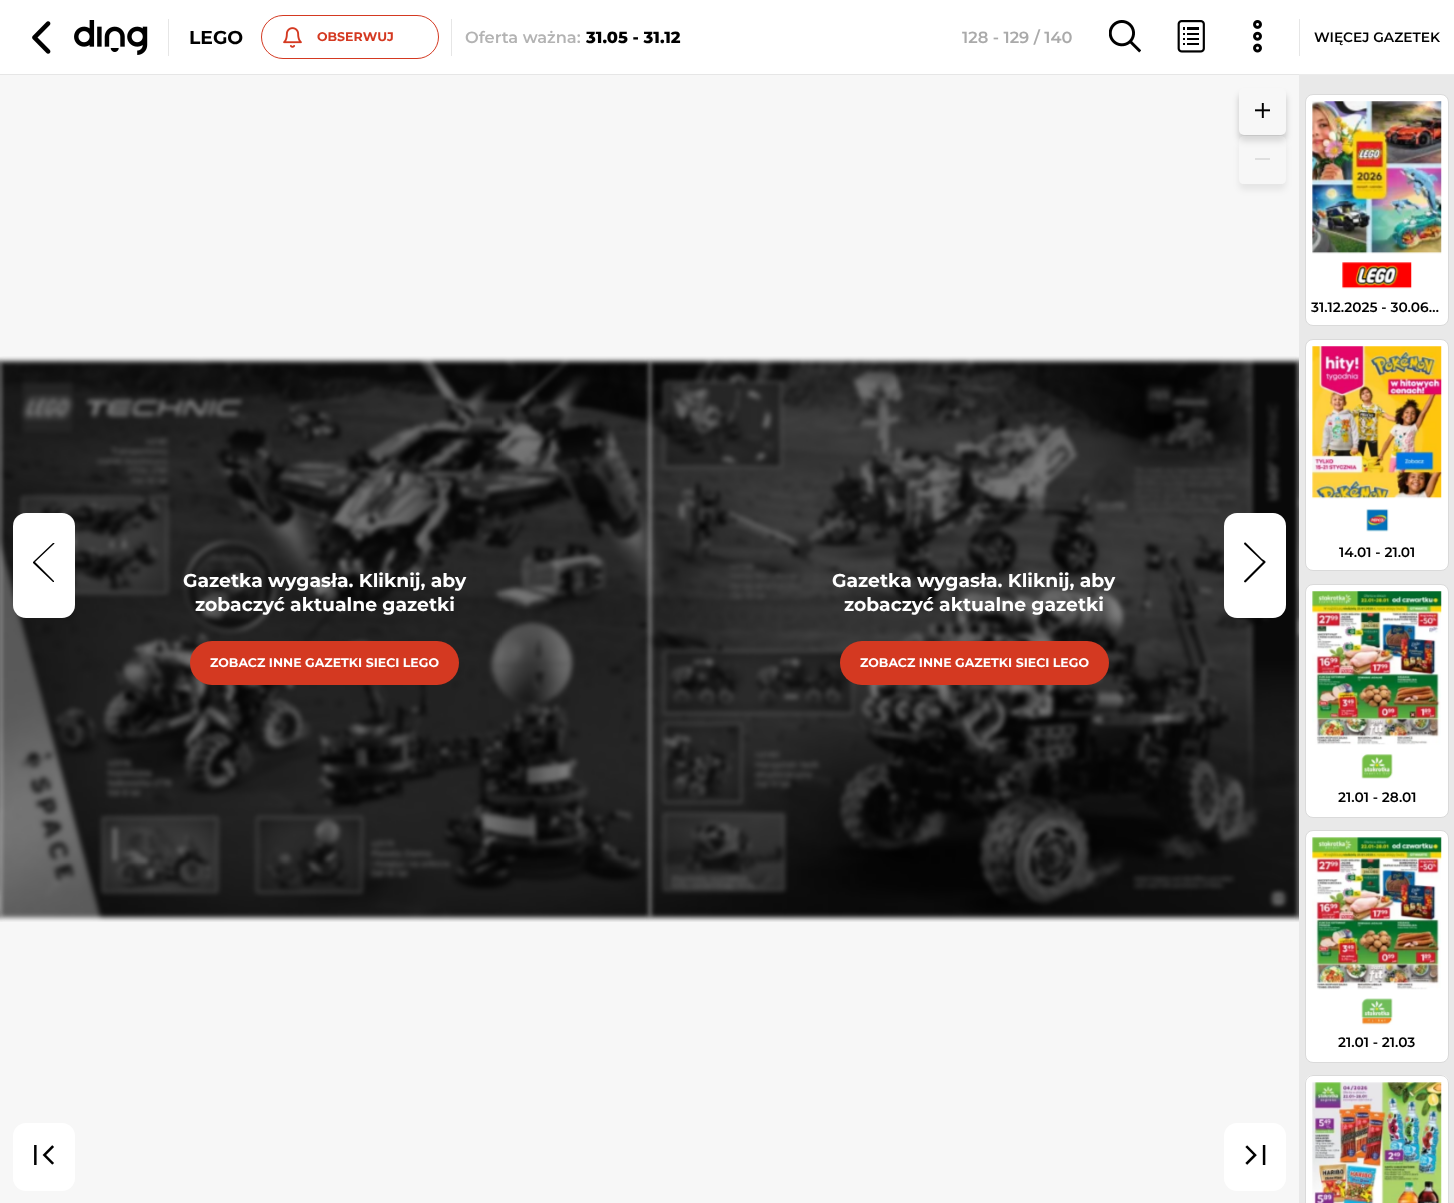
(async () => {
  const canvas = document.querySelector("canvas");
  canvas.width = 1454;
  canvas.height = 1203;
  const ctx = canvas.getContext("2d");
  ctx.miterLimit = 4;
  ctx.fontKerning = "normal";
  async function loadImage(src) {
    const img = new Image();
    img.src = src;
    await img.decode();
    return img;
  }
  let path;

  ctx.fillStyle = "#f7f7f7";
  ctx.fillRect(0, 0, 1454, 1203);
  ctx.fillStyle = "#ffffff";
  ctx.fillRect(0, 0, 1454, 74);
  ctx.fillStyle = "#e6e6e6";
  ctx.fillRect(0, 74, 1299, 1);
  ctx.drawImage(await loadImage("img/1.png"), 32, 21, 19, 33);
  ctx.drawImage(await loadImage("img/2.png"), 74, 20, 74, 35);
  ctx.fillRect(168, 19, 1, 37);
  ctx.beginPath();
  ctx.roundRect(261.5, 15.5, 177, 43, 21.5);
  ctx.strokeStyle = "#d43921";
  ctx.stroke();
  ctx.drawImage(await loadImage("img/3.png"), 283, 27, 19, 21);
  ctx.fillRect(451, 19, 1, 37);
  ctx.drawImage(await loadImage("img/4.png"), 1109, 20, 32, 33);
  ctx.drawImage(await loadImage("img/5.png"), 1177, 20, 28, 33);
  ctx.drawImage(await loadImage("img/6.png"), 1253, 20, 9, 33);
  ctx.fillStyle = "rgba(0, 0, 0, 0.2)";
  ctx.filter = "blur(3px)";
  ctx.beginPath();
  ctx.roundRect(1239, 94, 47, 47, 5);
  ctx.fill();
  ctx.filter = "none";
  ctx.fillStyle = "#f7f7f7";
  ctx.beginPath();
  ctx.roundRect(1239, 88, 47, 47, 5);
  ctx.fill();
  ctx.drawImage(await loadImage("img/7.png"), 1255, 103, 15, 15);
  ctx.save();
  path = new Path2D("M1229 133H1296V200H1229ZM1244 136H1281C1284 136 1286 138 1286 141V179C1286 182 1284 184 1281 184H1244C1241 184 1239 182 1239 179V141C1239 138 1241 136 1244 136Z");
  ctx.clip(path, "evenodd");
  ctx.fillStyle = "rgba(0, 0, 0, 0.07)";
  ctx.filter = "blur(3px)";
  ctx.beginPath();
  ctx.roundRect(1239, 143, 47, 47, 5);
  ctx.fill();
  ctx.filter = "none";
  ctx.restore();
  ctx.fillStyle = "rgba(247, 247, 247, 0.35)";
  ctx.beginPath();
  ctx.roundRect(1239, 136, 47, 48, 5);
  ctx.fill();
  ctx.fillStyle = "#dfdfdf";
  ctx.fillRect(1255, 158, 15, 2);
  ctx.drawImage(await loadImage("img/8.png"), 0, 357, 5, 565);
  ctx.drawImage(await loadImage("img/9.png"), 0, 356, 655, 566);
  ctx.fillStyle = "#ffffff";
  ctx.beginPath();
  ctx.roundRect(13, 513, 62, 105, 13);
  ctx.fill();
  ctx.save();
  ctx.beginPath();
  ctx.rect(33, 543, 22, 40);
  ctx.clip();
  ctx.fillStyle = "#000000";
  path = new Path2D("M33 562L53 543C54 542 55 543 54 544L35 562L51 578L54 581V582H53L33 563L32 562Z");
  ctx.fill(path);
  ctx.restore();
  ctx.fillStyle = "#d43921";
  ctx.beginPath();
  ctx.roundRect(190, 641, 269, 44, 22);
  ctx.fill();
  ctx.drawImage(await loadImage("img/10.png"), 646, 356, 653, 566);
  ctx.beginPath();
  ctx.roundRect(840, 641, 269, 44, 22);
  ctx.fill();
  ctx.drawImage(await loadImage("img/11.png"), 1295, 357, 4, 565);
  ctx.fillStyle = "#ffffff";
  ctx.beginPath();
  ctx.roundRect(1224, 513, 62, 105, 13);
  ctx.fill();
  ctx.fillStyle = "#000000";
  path = new Path2D("M1265 563L1246 582C1245 583 1244 582 1244 581L1263 562L1244 544C1244 543 1245 542 1246 543L1262 559C1264 560 1267 562 1265 563Z");
  ctx.fill(path);
  ctx.fillStyle = "#ffffff";
  ctx.beginPath();
  ctx.roundRect(13, 1123, 62, 68, 13);
  ctx.fill();
  ctx.drawImage(await loadImage("img/12.png"), 34, 1145, 20, 20);
  ctx.beginPath();
  ctx.roundRect(1224, 1123, 62, 68, 13);
  ctx.fill();
  ctx.drawImage(await loadImage("img/13.png"), 1245, 1145, 21, 20);
  for (const [x, y, w, h, color] of [
    [1299, 74, 155, 1, "#ebebeb"],
    [1299, 19, 1, 37, "#e6e6e6"],
    [1299, 75, 155, 1128, "#e9e9e9"],
  ]) {
    ctx.fillStyle = color;
    ctx.fillRect(x, y, w, h);
  }
  ctx.fillStyle = "#ffffff";
  ctx.beginPath();
  ctx.roundRect(1305.5, 94.5, 143, 231, 7.5);
  ctx.fill();
  ctx.strokeStyle = "#dadada";
  ctx.stroke();
  ctx.drawImage(await loadImage("img/14.png"), 1312, 101, 130, 153);
  ctx.drawImage(await loadImage("img/15.png"), 1342, 262, 70, 27);
  ctx.beginPath();
  ctx.roundRect(1305.5, 339.5, 143, 231, 7.5);
  ctx.fill();
  ctx.stroke();
  ctx.drawImage(await loadImage("img/16.png"), 1312, 346, 130, 153);
  ctx.drawImage(await loadImage("img/17.png"), 1366, 508, 23, 24);
  ctx.beginPath();
  ctx.roundRect(1305.5, 584.5, 143, 233, 7.5);
  ctx.fill();
  ctx.stroke();
  ctx.drawImage(await loadImage("img/18.png"), 1312, 591, 130, 154);
  ctx.drawImage(await loadImage("img/19.png"), 1361, 753, 32, 26);
  ctx.beginPath();
  ctx.roundRect(1305.5, 830.5, 143, 232, 7.5);
  ctx.fill();
  ctx.stroke();
  ctx.drawImage(await loadImage("img/20.png"), 1312, 837, 130, 153);
  ctx.drawImage(await loadImage("img/21.png"), 1361, 998, 32, 27);
  path = new Path2D("M1313 1075H1441C1445.5 1075 1449 1078.5 1449 1083V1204H1305V1083C1305 1078.5 1308.5 1075 1313 1075Z");
  ctx.fill(path);
  ctx.beginPath();
  ctx.roundRect(1305.5, 1075.5, 143, 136, 7.5);
  ctx.stroke();
  ctx.drawImage(await loadImage("img/22.png"), 1312, 1082, 130, 121);
  ctx.font = "bold 18.75px Montserrat";
  ctx.fillStyle = "#000000";
  ctx.fillText("LEGO", 189, 44);
  ctx.font = "bold 12.5px Montserrat";
  ctx.fillStyle = "#d43921";
  ctx.fillText("OBSERWUJ", 317, 41);
  ctx.font = "600 16.25px Montserrat";
  ctx.fillStyle = "#b3b3b3";
  ctx.fillText("Oferta ważna:", 465, 43);
  ctx.font = "800 16.25px Montserrat";
  ctx.fillStyle = "#000000";
  ctx.fillText("31.05 - 31.12", 586, 43);
  ctx.font = "600 16.25px Montserrat";
  ctx.fillStyle = "#aaaaaa";
  ctx.fillText("128 - 129 / 140", 962, 43);
  ctx.font = "bold 18.75px Montserrat";
  ctx.fillStyle = "#ffffff";
  ctx.fillText("Gazetka wygasła. Kliknij, aby", 183, 587);
  ctx.fillText("zobaczyć aktualne gazetki", 195, 611);
  ctx.font = "bold 12.5px Montserrat";
  ctx.fillText("ZOBACZ INNE GAZETKI SIECI LEGO", 210, 667);
  ctx.font = "bold 18.75px Montserrat";
  ctx.fillText("Gazetka wygasła. Kliknij, aby", 832, 587);
  ctx.fillText("zobaczyć aktualne gazetki", 844, 611);
  ctx.font = "bold 12.5px Montserrat";
  ctx.fillText("ZOBACZ INNE GAZETKI SIECI LEGO", 860, 667);
  ctx.font = "600 13.75px Montserrat";
  ctx.fillStyle = "#000000";
  for (const [text, x, y] of [
    ["WIĘCEJ GAZETEK", 1314, 42],
    ["31.12.2025 - 30.06…", 1311, 312],
    ["14.01 - 21.01", 1339, 557],
    ["21.01 - 28.01", 1338, 802],
    ["21.01 - 21.03", 1338, 1047],
  ]) {
    ctx.fillText(text, x, y);
  }
})();
